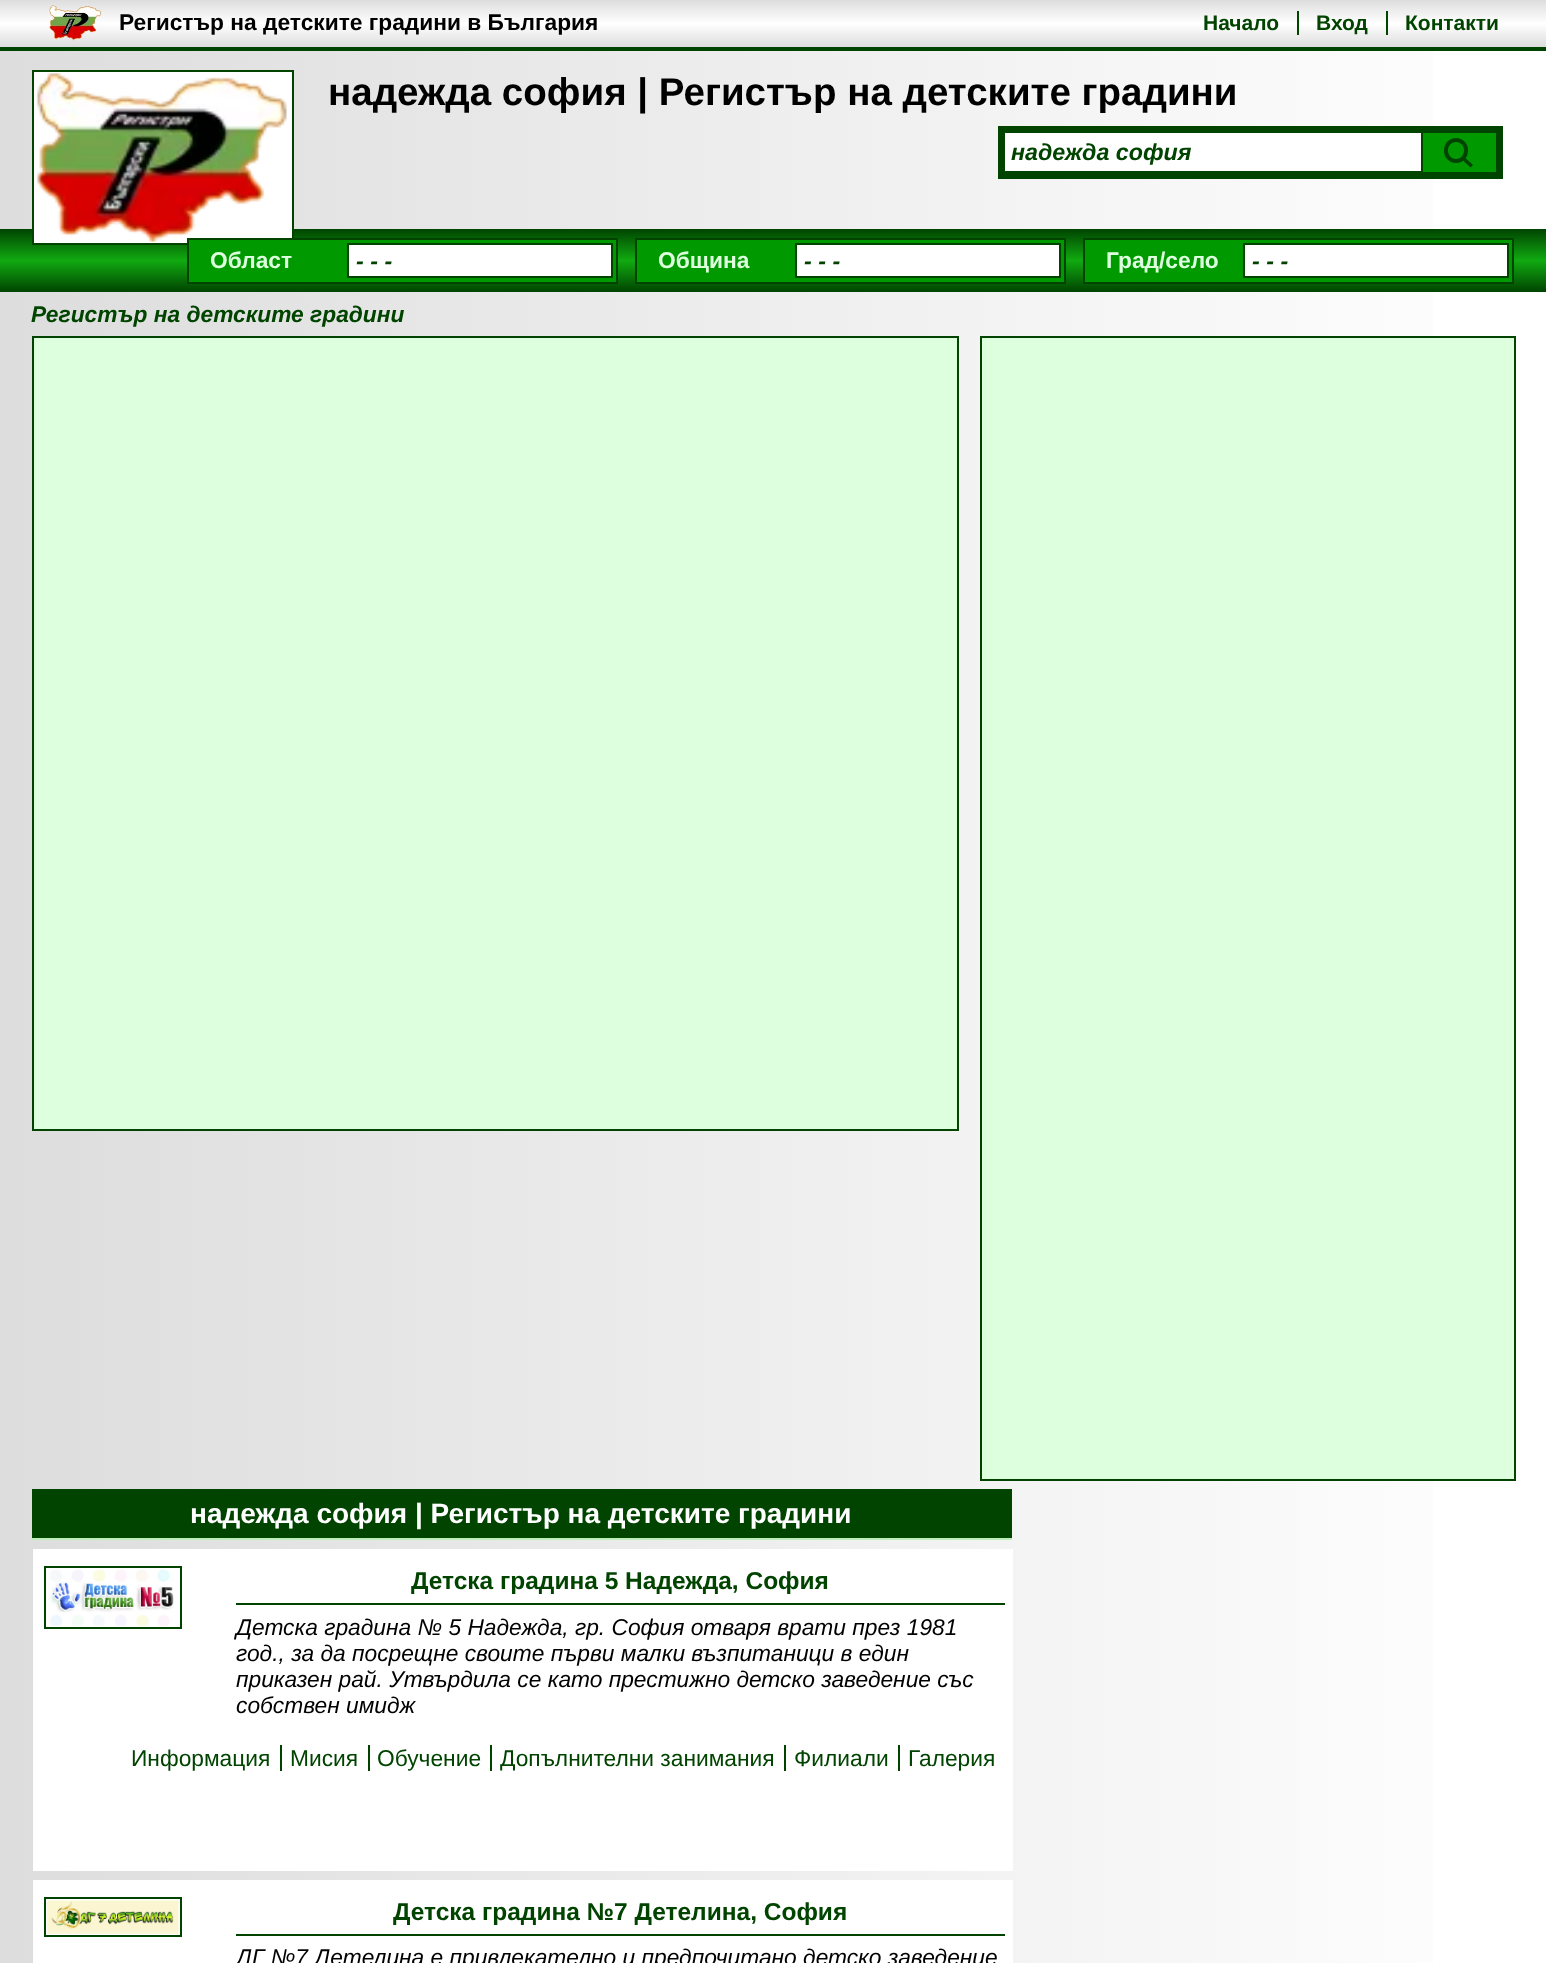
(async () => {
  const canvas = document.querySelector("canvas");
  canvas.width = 1546;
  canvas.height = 1963;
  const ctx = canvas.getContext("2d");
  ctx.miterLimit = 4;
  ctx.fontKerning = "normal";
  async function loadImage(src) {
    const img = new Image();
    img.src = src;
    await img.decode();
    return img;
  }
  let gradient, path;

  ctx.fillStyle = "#ffffff";
  ctx.fillRect(0, 0, 1546, 1963);
  gradient = ctx.createLinearGradient(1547, 1157, 0, 1157);
  gradient.addColorStop(0, "#ffffff");
  gradient.addColorStop(1, "#dddddd");
  ctx.fillStyle = gradient;
  ctx.fillRect(0, 51, 1433, 1912);
  gradient = ctx.createLinearGradient(774, 47, 774, 0);
  gradient.addColorStop(0, "#dddddd");
  gradient.addColorStop(0.5, "#ffffff");
  gradient.addColorStop(1, "#dddddd");
  ctx.fillStyle = gradient;
  ctx.fillRect(0, 0, 1546, 47);
  ctx.fillStyle = "#004400";
  ctx.fillRect(0, 47, 1546, 4);
  ctx.drawImage(await loadImage("img/1.png"), 49, 5, 52, 36);
  ctx.fillRect(1297, 11, 2, 24);
  ctx.fillRect(1386, 11, 2, 24);
  gradient = ctx.createLinearGradient(774, 292, 774, 229);
  gradient.addColorStop(0, "#004400");
  gradient.addColorStop(0.5, "#11aa11");
  gradient.addColorStop(1, "#004400");
  ctx.fillStyle = gradient;
  ctx.fillRect(0, 229, 1546, 63);
  ctx.fillStyle = "#ffffff";
  ctx.beginPath();
  ctx.rect(33, 71, 260, 173);
  ctx.fill();
  ctx.strokeStyle = "#004400";
  ctx.lineWidth = 2;
  ctx.stroke();
  ctx.drawImage(await loadImage("img/2.png"), 36, 73, 251, 169);
  for (const [x, y, w, h, color] of [
    [998, 126, 505, 53, "#004400"],
    [1005, 133, 416, 38, "#ffffff"],
    [1423, 133, 73, 39, "#009900"],
  ]) {
    ctx.fillStyle = color;
    ctx.fillRect(x, y, w, h);
  }
  ctx.beginPath();
  ctx.roundRect(1446, 140, 20, 21, 10);
  ctx.lineWidth = 4;
  ctx.stroke();
  ctx.fillStyle = "#004400";
  path = new Path2D("M1465.5 158L1473 165L1470.5 167.5L1463 160.5Z");
  ctx.fill(path);
  ctx.fillStyle = "#009900";
  ctx.beginPath();
  ctx.rect(188, 239, 429, 44);
  ctx.fill();
  ctx.lineWidth = 2;
  ctx.stroke();
  ctx.fillStyle = "#ffffff";
  ctx.beginPath();
  ctx.rect(348, 244, 264, 33);
  ctx.fill();
  ctx.stroke();
  ctx.fillStyle = "#009900";
  ctx.beginPath();
  ctx.rect(636, 239, 429, 44);
  ctx.fill();
  ctx.stroke();
  ctx.fillStyle = "#ffffff";
  ctx.beginPath();
  ctx.rect(796, 244, 264, 33);
  ctx.fill();
  ctx.stroke();
  ctx.fillStyle = "#009900";
  ctx.beginPath();
  ctx.rect(1084, 239, 429, 44);
  ctx.fill();
  ctx.stroke();
  ctx.fillStyle = "#ffffff";
  ctx.beginPath();
  ctx.rect(1244, 244, 264, 33);
  ctx.fill();
  ctx.stroke();
  ctx.fillStyle = "#ddffdd";
  ctx.beginPath();
  ctx.rect(33, 337, 925, 793);
  ctx.fill();
  ctx.stroke();
  ctx.beginPath();
  ctx.rect(981, 337, 534, 1143);
  ctx.fill();
  ctx.stroke();
  for (const [x, y, w, h, color] of [
    [32, 1489, 980, 49, "#004400"],
    [32, 1538, 980, 2, "#bbeebb"],
    [33, 1549, 980, 322, "#ffffff"],
  ]) {
    ctx.fillStyle = color;
    ctx.fillRect(x, y, w, h);
  }
  ctx.strokeRect(45, 1567, 136, 61);
  ctx.drawImage(await loadImage("img/3.png"), 50, 1569, 124, 57);
  for (const [x, y, w, h, color] of [
    [236, 1603, 769, 2, "#004400"],
    [280, 1745, 2, 26, "#004400"],
    [368, 1745, 2, 26, "#004400"],
    [490, 1745, 2, 26, "#004400"],
    [784, 1745, 2, 26, "#004400"],
    [898, 1745, 2, 26, "#004400"],
    [33, 1880, 980, 83, "#ffffff"],
  ]) {
    ctx.fillStyle = color;
    ctx.fillRect(x, y, w, h);
  }
  ctx.strokeRect(45, 1898, 136, 38);
  ctx.drawImage(await loadImage("img/4.png"), 47, 1900, 132, 34);
  ctx.fillStyle = "#004400";
  ctx.fillRect(236, 1934, 769, 2);
  ctx.font = "bold 22.75px Liberation Sans";
  ctx.fillStyle = "#000000";
  ctx.fillText("Регистър на детските градини в България", 119, 30);
  ctx.font = "bold 21px Liberation Sans";
  ctx.fillStyle = "#004400";
  for (const [text, x, y] of [
    ["Начало", 1203, 30],
    ["Вход", 1316, 30],
    ["Контакти", 1405, 30],
  ]) {
    ctx.fillText(text, x, y);
  }
  ctx.font = "bold 38.5px Liberation Sans";
  ctx.fillStyle = "#000000";
  ctx.fillText("надежда софия | Регистър на детските градини", 328, 105);
  ctx.font = "italic bold 23.25px Liberation Sans";
  ctx.fillStyle = "#004400";
  ctx.fillText("надежда софия", 1011, 160);
  ctx.font = "bold 22.75px Liberation Sans";
  ctx.fillStyle = "#ddffdd";
  ctx.fillText("Област", 210, 268);
  ctx.font = "italic bold 23.25px Liberation Sans";
  ctx.fillStyle = "#004400";
  ctx.fillText("- - -", 356, 269);
  ctx.font = "bold 22.75px Liberation Sans";
  ctx.fillStyle = "#ddffdd";
  ctx.fillText("Община", 658, 268);
  ctx.font = "italic bold 23.25px Liberation Sans";
  ctx.fillStyle = "#004400";
  ctx.fillText("- - -", 804, 269);
  ctx.font = "bold 22.75px Liberation Sans";
  ctx.fillStyle = "#ddffdd";
  ctx.fillText("Град/село", 1106, 268);
  ctx.font = "italic bold 23.25px Liberation Sans";
  ctx.fillStyle = "#004400";
  ctx.fillText("- - -", 1252, 269);
  ctx.font = "italic bold 22.75px Liberation Sans";
  ctx.fillText("Регистър на детските градини", 31, 322);
  ctx.font = "bold 28px Liberation Sans";
  ctx.fillStyle = "#ffffff";
  ctx.fillText("надежда софия | Регистър на детските градини", 190, 1523);
  ctx.font = "bold 24.5px Liberation Sans";
  ctx.fillStyle = "#004400";
  ctx.fillText("Детска градина 5 Надежда, София", 411, 1589);
  ctx.font = "italic 22.75px Liberation Sans";
  ctx.fillStyle = "#000000";
  for (const [text, x, y] of [
    ["Детска градина № 5 Надежда, гр. София отваря врати през 1981", 236, 1635],
    ["год., за да посрещне своите първи малки възпитаници в един", 236, 1661],
    ["приказен рай. Утвърдила се като престижно детско заведение със", 236, 1687],
    ["собствен имидж", 236, 1713],
  ]) {
    ctx.fillText(text, x, y);
  }
  ctx.font = "22.75px Liberation Sans";
  ctx.fillStyle = "#004400";
  for (const [text, x, y] of [
    ["Информация", 131, 1766],
    ["Мисия", 290, 1766],
    ["Обучение", 377, 1766],
    ["Допълнителни занимания", 500, 1766],
    ["Филиали", 794, 1766],
    ["Галерия", 908, 1766],
  ]) {
    ctx.fillText(text, x, y);
  }
  ctx.font = "bold 24.5px Liberation Sans";
  ctx.fillText("Детска градина №7 Детелина, София", 393, 1920);
  ctx.font = "italic 22.75px Liberation Sans";
  ctx.fillStyle = "#000000";
  ctx.fillText("ДГ №7 Детелина е привлекателно и предпочитано детско заведение", 236, 1965);
})();
